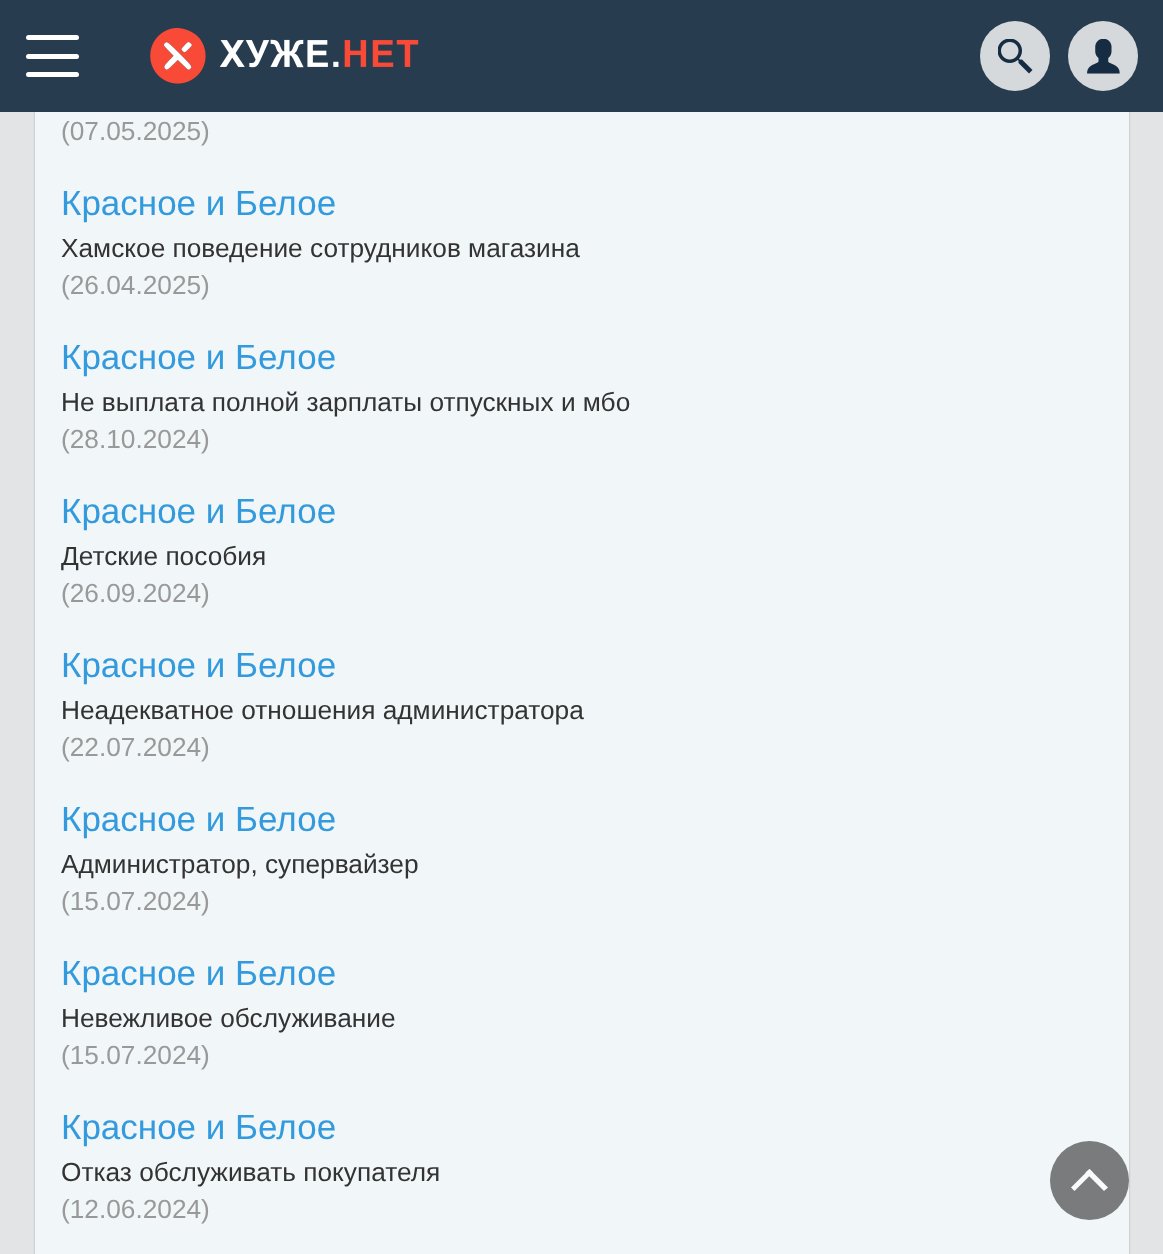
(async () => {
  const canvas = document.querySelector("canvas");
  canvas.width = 1163;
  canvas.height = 1254;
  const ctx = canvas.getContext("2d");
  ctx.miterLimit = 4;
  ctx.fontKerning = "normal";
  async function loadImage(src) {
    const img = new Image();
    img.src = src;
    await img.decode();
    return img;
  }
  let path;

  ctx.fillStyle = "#e2e4e6";
  ctx.fillRect(0, 0, 1163, 1254);
  ctx.fillStyle = "rgba(128, 128, 128, 0.5)";
  ctx.filter = "blur(1px)";
  ctx.beginPath();
  ctx.rect(35, -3, 1094, 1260);
  ctx.fill();
  ctx.filter = "none";
  ctx.fillStyle = "#283c4f";
  ctx.fillRect(0, 0, 1163, 112);
  ctx.fillStyle = "#ffffff";
  ctx.beginPath();
  ctx.roundRect(26, 35, 53, 5, 2.5);
  ctx.fill();
  ctx.beginPath();
  ctx.roundRect(26, 54, 53, 5, 2.5);
  ctx.fill();
  ctx.beginPath();
  ctx.roundRect(26, 72, 53, 5, 2.5);
  ctx.fill();
  ctx.drawImage(await loadImage("img/1.png"), 150, 28, 269, 56);
  ctx.fillStyle = "#d5d9dc";
  ctx.beginPath();
  ctx.arc(1015, 56, 35, 0, Math.PI * 2);
  ctx.fill();
  ctx.drawImage(await loadImage("img/2.png"), 998, 39, 35, 35);
  ctx.beginPath();
  ctx.arc(1103, 56, 35, 0, Math.PI * 2);
  ctx.fill();
  ctx.drawImage(await loadImage("img/3.png"), 1087, 39, 33, 35);
  ctx.fillStyle = "#f1f6f9";
  ctx.fillRect(35, 112, 1094, 1142);
  ctx.fillStyle = "#797b7d";
  ctx.beginPath();
  ctx.arc(1089.5, 1180.5, 39.5, 0, Math.PI * 2);
  ctx.fill();
  ctx.fillStyle = "#f8fbfc";
  path = new Path2D("M1089.5 1169L1108 1187.5L1104 1191L1085.5 1172.5Z");
  ctx.fill(path);
  path = new Path2D("M1089.5 1169L1093 1172.5L1074.5 1191L1071 1187.5Z");
  ctx.fill(path);
  ctx.font = "26.25px Liberation Sans";
  ctx.fillStyle = "#999999";
  ctx.fillText("(07.05.2025)", 61, 140);
  ctx.font = "35px Liberation Sans";
  ctx.fillStyle = "#339bdd";
  ctx.fillText("Красное и Белое", 61, 215);
  ctx.font = "26.25px Liberation Sans";
  ctx.fillStyle = "#333333";
  ctx.fillText("Хамское поведение сотрудников магазина", 61, 257);
  ctx.fillStyle = "#999999";
  ctx.fillText("(26.04.2025)", 61, 294);
  ctx.font = "35px Liberation Sans";
  ctx.fillStyle = "#339bdd";
  ctx.fillText("Красное и Белое", 61, 369);
  ctx.font = "26.25px Liberation Sans";
  ctx.fillStyle = "#333333";
  ctx.fillText("Не выплата полной зарплаты отпускных и мбо", 61, 411);
  ctx.fillStyle = "#999999";
  ctx.fillText("(28.10.2024)", 61, 448);
  ctx.font = "35px Liberation Sans";
  ctx.fillStyle = "#339bdd";
  ctx.fillText("Красное и Белое", 61, 523);
  ctx.font = "26.25px Liberation Sans";
  ctx.fillStyle = "#333333";
  ctx.fillText("Детские пособия", 61, 565);
  ctx.fillStyle = "#999999";
  ctx.fillText("(26.09.2024)", 61, 602);
  ctx.font = "35px Liberation Sans";
  ctx.fillStyle = "#339bdd";
  ctx.fillText("Красное и Белое", 61, 677);
  ctx.font = "26.25px Liberation Sans";
  ctx.fillStyle = "#333333";
  ctx.fillText("Неадекватное отношения администратора", 61, 719);
  ctx.fillStyle = "#999999";
  ctx.fillText("(22.07.2024)", 61, 756);
  ctx.font = "35px Liberation Sans";
  ctx.fillStyle = "#339bdd";
  ctx.fillText("Красное и Белое", 61, 831);
  ctx.font = "26.25px Liberation Sans";
  ctx.fillStyle = "#333333";
  ctx.fillText("Администратор, супервайзер", 61, 873);
  ctx.fillStyle = "#999999";
  ctx.fillText("(15.07.2024)", 61, 910);
  ctx.font = "35px Liberation Sans";
  ctx.fillStyle = "#339bdd";
  ctx.fillText("Красное и Белое", 61, 985);
  ctx.font = "26.25px Liberation Sans";
  ctx.fillStyle = "#333333";
  ctx.fillText("Невежливое обслуживание", 61, 1027);
  ctx.fillStyle = "#999999";
  ctx.fillText("(15.07.2024)", 61, 1064);
  ctx.font = "35px Liberation Sans";
  ctx.fillStyle = "#339bdd";
  ctx.fillText("Красное и Белое", 61, 1139);
  ctx.font = "26.25px Liberation Sans";
  ctx.fillStyle = "#333333";
  ctx.fillText("Отказ обслуживать покупателя", 61, 1181);
  ctx.fillStyle = "#999999";
  ctx.fillText("(12.06.2024)", 61, 1218);
})();
